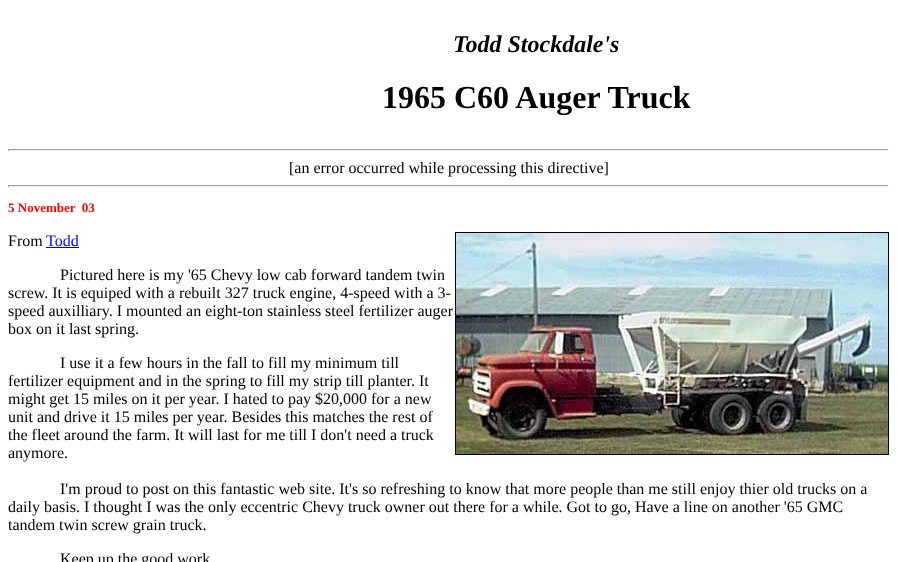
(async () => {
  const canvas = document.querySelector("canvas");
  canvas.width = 897;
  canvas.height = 562;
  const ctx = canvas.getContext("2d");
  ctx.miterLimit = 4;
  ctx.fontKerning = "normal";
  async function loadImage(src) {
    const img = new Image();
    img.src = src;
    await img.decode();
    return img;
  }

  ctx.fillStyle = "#ffffff";
  ctx.fillRect(0, 0, 897, 562);
  for (const [x, y, w, h, color] of [
    [8, 149, 881, 1, "#9f9f9f"],
    [888, 149, 1, 2, "#eeeeee"],
    [8, 150, 881, 1, "#eeeeee"],
    [8, 149, 1, 2, "#9f9f9f"],
    [8, 185, 881, 1, "#9f9f9f"],
    [888, 185, 1, 2, "#eeeeee"],
    [8, 186, 881, 1, "#eeeeee"],
    [8, 185, 1, 2, "#9f9f9f"],
    [46, 247, 33, 1, "#0000ee"],
  ]) {
    ctx.fillStyle = color;
    ctx.fillRect(x, y, w, h);
  }
  ctx.strokeStyle = "#000000";
  ctx.strokeRect(455.5, 232.5, 433, 222);
  ctx.drawImage(await loadImage("img/1.png"), 456, 233, 432, 221);
  ctx.font = "italic bold 24px Liberation Serif";
  ctx.fillStyle = "#000000";
  ctx.fillText("Todd Stockdale's", 453, 52);
  ctx.font = "bold 32px Liberation Serif";
  ctx.fillText("1965 C60 Auger Truck", 382, 108);
  ctx.font = "16px Liberation Serif";
  ctx.fillText("[an error occurred while processing this directive]", 289, 173);
  ctx.font = "bold 13px Liberation Serif";
  ctx.fillStyle = "#ff0000";
  ctx.fillText("5 November  03", 8, 212);
  ctx.font = "16px Liberation Serif";
  ctx.fillStyle = "#000000";
  ctx.fillText("From", 8, 246);
  ctx.fillStyle = "#0000ee";
  ctx.fillText("Todd", 46, 246);
  ctx.fillStyle = "#000000";
  for (const [text, x, y] of [
    ["Pictured here is my '65 Chevy low cab forward tandem twin", 60, 280],
    ["screw. It is equiped with a rebuilt 327 truck engine, 4-speed with a 3-", 8, 298],
    ["speed auxilliary. I mounted an eight-ton stainless steel fertilizer auger", 8, 316],
    ["box on it last spring.", 8, 334],
    ["I use it a few hours in the fall to fill my minimum till", 60, 368],
    ["fertilizer equipment and in the spring to fill my strip till planter. It", 8, 386],
    ["might get 15 miles on it per year. I hated to pay $20,000 for a new", 8, 404],
    ["unit and drive it 15 miles per year. Besides this matches the rest of", 8, 422],
    ["the fleet around the farm. It will last for me till I don't need a truck", 8, 440],
    ["anymore.", 8, 458],
    ["I'm proud to post on this fantastic web site. It's so refreshing to know that more people than me still enjoy thier old trucks on a", 60, 494],
    ["daily basis. I thought I was the only eccentric Chevy truck owner out there for a while. Got to go, Have a line on another '65 GMC", 8, 512],
    ["tandem twin screw grain truck.", 8, 530],
    ["Keep up the good work", 60, 564],
  ]) {
    ctx.fillText(text, x, y);
  }
})();
